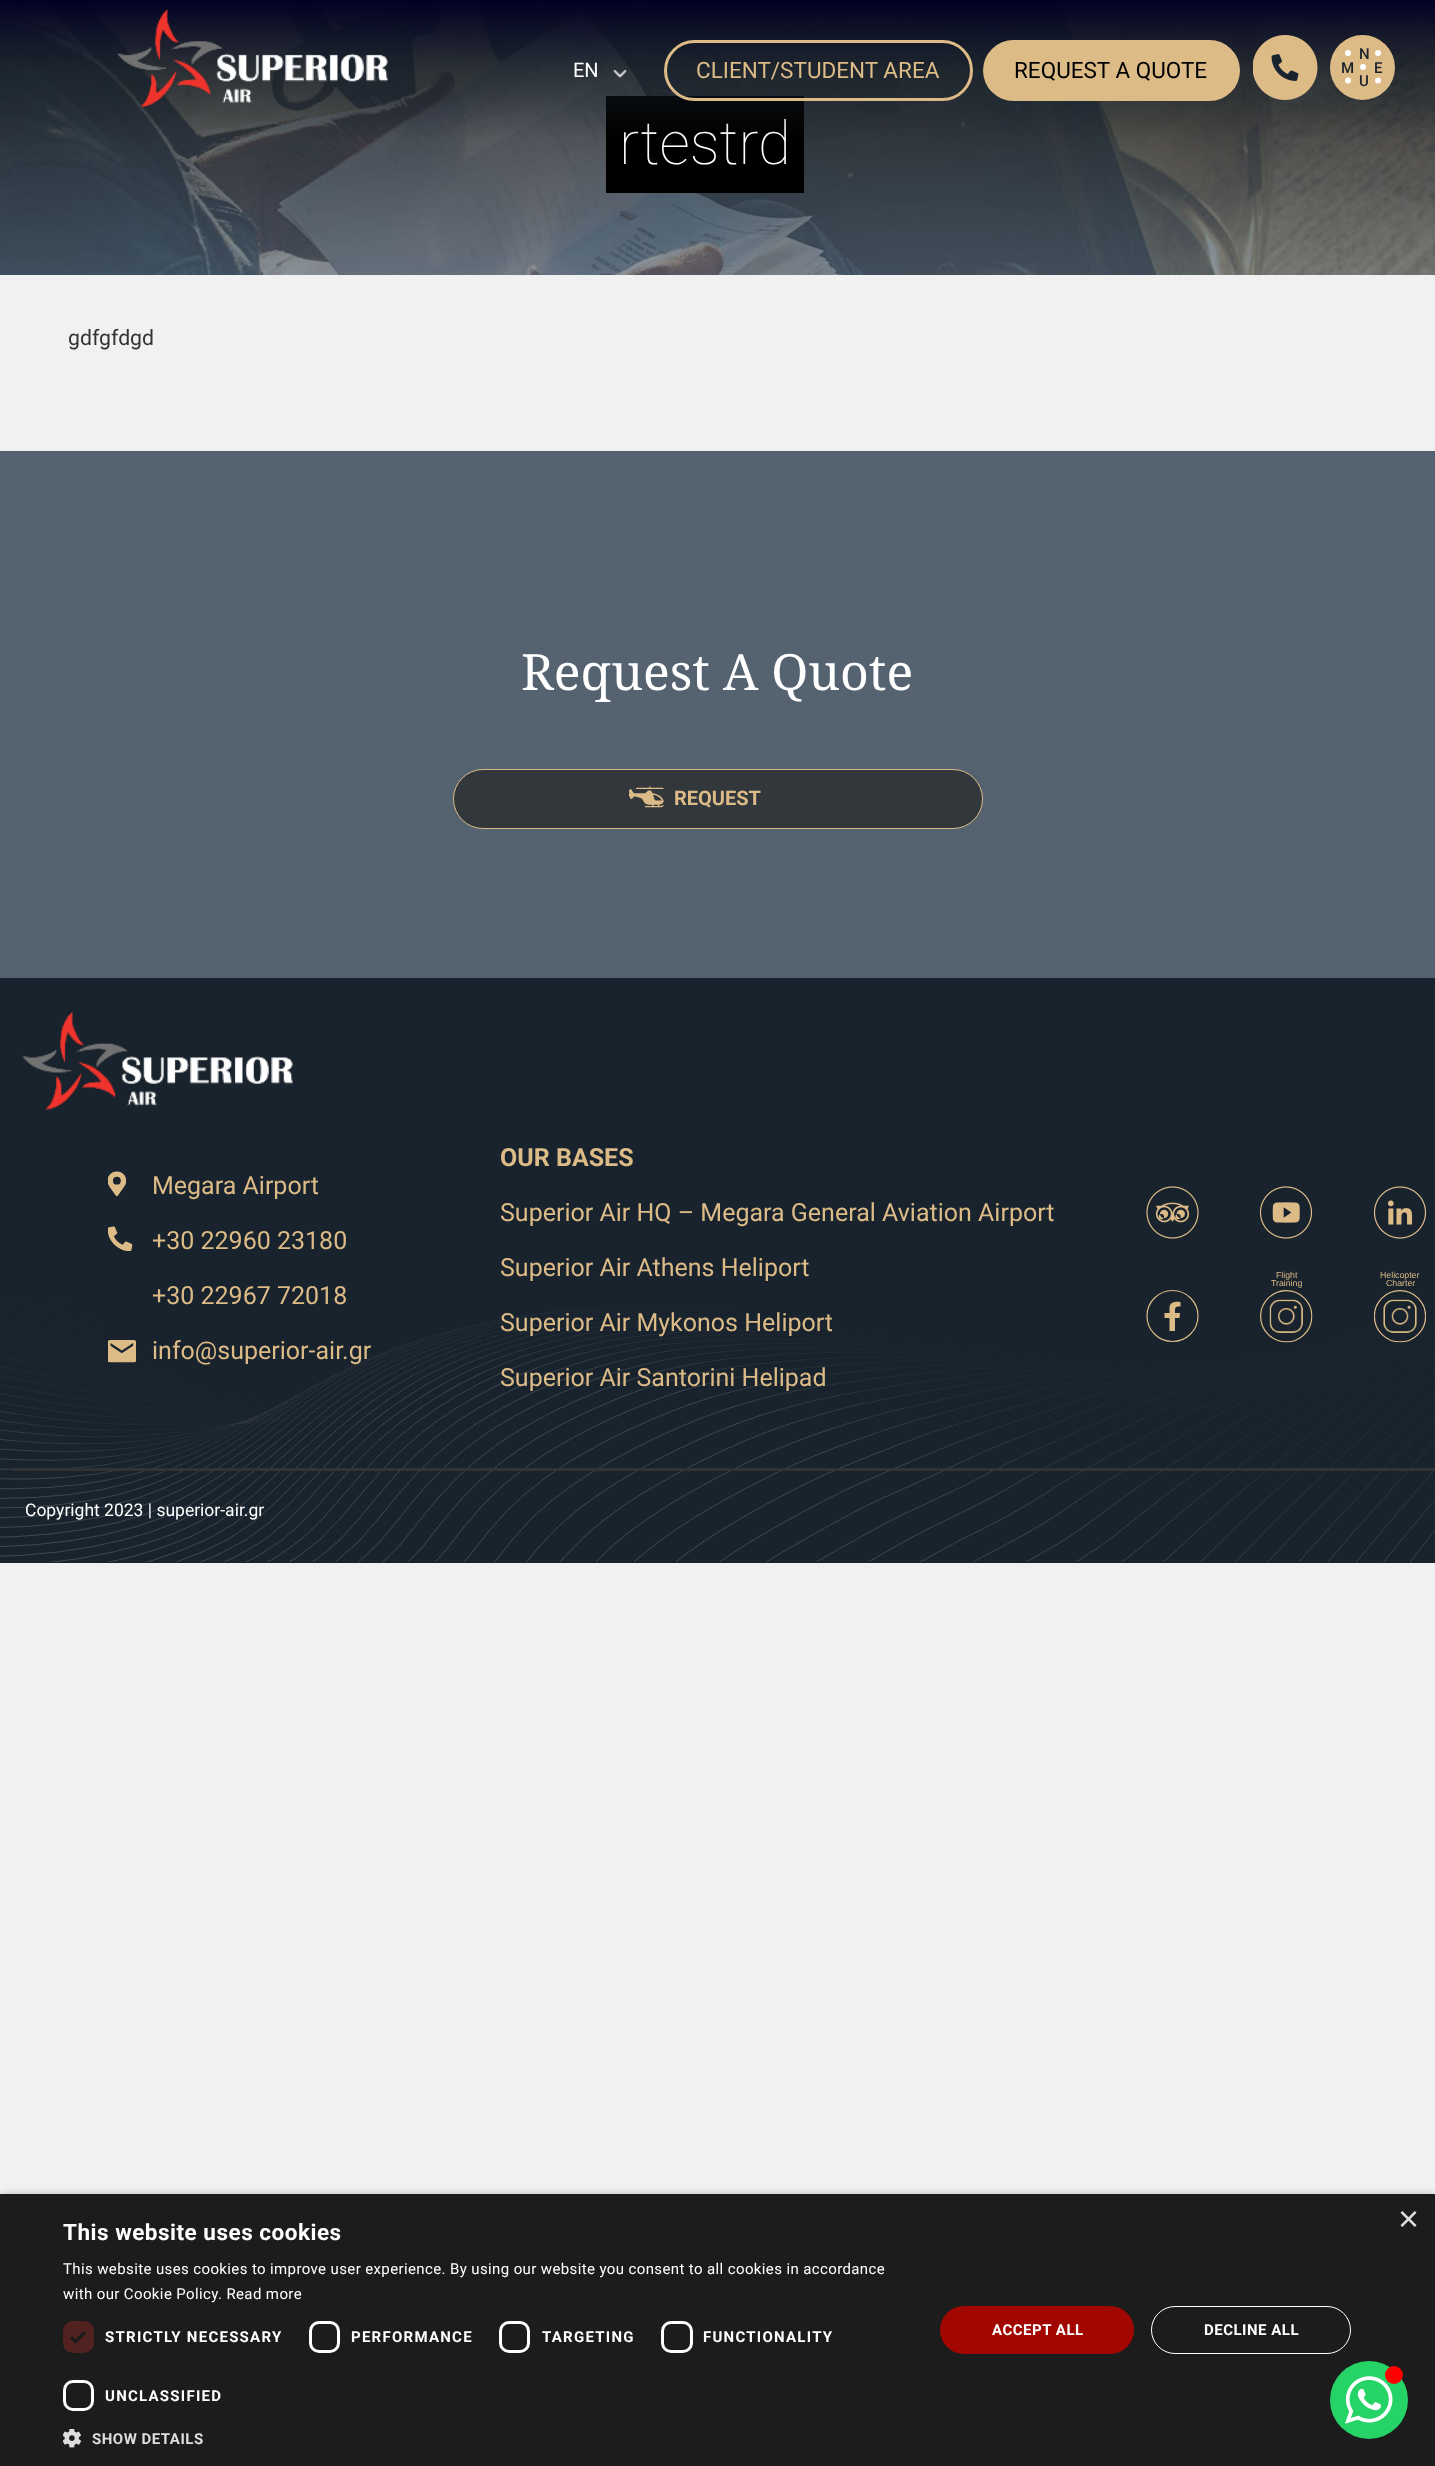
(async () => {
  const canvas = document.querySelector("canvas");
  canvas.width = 1435;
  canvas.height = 2466;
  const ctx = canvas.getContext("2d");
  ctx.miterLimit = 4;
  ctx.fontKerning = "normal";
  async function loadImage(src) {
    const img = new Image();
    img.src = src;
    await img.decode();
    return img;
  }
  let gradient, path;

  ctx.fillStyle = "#f1f1f1";
  ctx.fillRect(0, 0, 1435, 2466);
  ctx.drawImage(await loadImage("img/4.png"), 0, 1, 1435, 274);
  ctx.fillStyle = "#000000";
  ctx.fillRect(606, 96, 198, 97);
  ctx.fillStyle = "#556370";
  ctx.fillRect(0, 451, 1435, 527);
  ctx.fillStyle = "#32373c";
  ctx.beginPath();
  ctx.roundRect(453.5, 769.5, 529, 59, 29.5);
  ctx.fill();
  ctx.strokeStyle = "#dcbb87";
  ctx.stroke();
  ctx.drawImage(await loadImage("img/5.png"), 629, 786, 35, 22);
  ctx.fillStyle = "#19232d";
  ctx.fillRect(0, 978, 1435, 585);
  ctx.drawImage(await loadImage("img/6.png"), 0, 1298, 1435, 265);
  ctx.drawImage(await loadImage("img/7.png"), 22, 1012, 271, 99);
  ctx.drawImage(await loadImage("img/8.png"), 108, 1171, 18, 25);
  ctx.drawImage(await loadImage("img/9.png"), 108, 1226, 25, 25);
  ctx.drawImage(await loadImage("img/10.png"), 108, 1340, 28, 23);
  ctx.drawImage(await loadImage("img/11.png"), 1146, 1186, 53, 53);
  ctx.drawImage(await loadImage("img/12.png"), 1260, 1186, 53, 53);
  ctx.drawImage(await loadImage("img/13.png"), 1374, 1186, 52, 53);
  ctx.drawImage(await loadImage("img/14.png"), 1260, 1290, 53, 53);
  ctx.drawImage(await loadImage("img/15.png"), 1374, 1290, 52, 53);
  ctx.beginPath();
  ctx.arc(1172.5, 1316, 25.5, 0, Math.PI * 2);
  ctx.lineWidth = 1.2;
  ctx.stroke();
  ctx.fillStyle = "#dcbb87";
  path = new Path2D("M1179.5 1318L1180 1313H1175C1175 1307.5 1174.5 1306.5 1180.5 1306.5V1302C1176 1301.5 1170.5 1301.5 1169.5 1307V1313H1164.5V1318H1169.5V1331H1175V1318Z");
  ctx.fill(path);
  ctx.fillStyle = "#333333";
  ctx.fillRect(13, 1468, 1422, 3);
  ctx.fillStyle = "rgba(0, 0, 0, 0.35)";
  ctx.filter = "blur(5px)";
  ctx.beginPath();
  ctx.rect(1, 2196, 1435, 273);
  ctx.fill();
  ctx.filter = "none";
  ctx.fillStyle = "#1c1c1c";
  ctx.fillRect(0, 2194, 1435, 272);
  ctx.fillStyle = "#522220";
  ctx.beginPath();
  ctx.roundRect(63, 2321, 31, 32, 10);
  ctx.fill();
  path = new Path2D("M71 2337.5L75.5 2341.5L85 2332");
  ctx.strokeStyle = "#1c1c1c";
  ctx.lineWidth = 3.3;
  ctx.stroke(path);
  ctx.beginPath();
  ctx.roundRect(310.5, 2322.5, 28, 29, 8.5);
  ctx.strokeStyle = "#ffffff";
  ctx.lineWidth = 3;
  ctx.stroke();
  ctx.beginPath();
  ctx.roundRect(500.5, 2322.5, 28, 29, 8.5);
  ctx.stroke();
  ctx.beginPath();
  ctx.roundRect(662.5, 2322.5, 29, 29, 8.5);
  ctx.stroke();
  ctx.beginPath();
  ctx.roundRect(64.5, 2381.5, 28, 28, 8.5);
  ctx.stroke();
  ctx.drawImage(await loadImage("img/16.png"), 63, 2429, 18, 19);
  ctx.fillStyle = "#a10700";
  ctx.beginPath();
  ctx.roundRect(940, 2306, 194, 48, 24);
  ctx.fill();
  ctx.beginPath();
  ctx.roundRect(1151.5, 2306.5, 199, 47, 23.5);
  ctx.lineWidth = 1;
  ctx.stroke();
  ctx.fillStyle = "#25d366";
  ctx.beginPath();
  ctx.arc(1369, 2400, 39, 0, Math.PI * 2);
  ctx.fill();
  ctx.drawImage(await loadImage("img/17.png"), 1345, 2376, 48, 48);
  ctx.fillStyle = "#ff0000";
  ctx.beginPath();
  ctx.arc(1394, 2375, 9, 0, Math.PI * 2);
  ctx.fill();
  ctx.font = "100 60px Roboto";
  ctx.fillStyle = "#ffffff";
  ctx.fillText("rtestrd", 619, 164);
  gradient = ctx.createLinearGradient(718, 0, 718, 140);
  gradient.addColorStop(0, "#020024");
  gradient.addColorStop(0.52, "rgba(25, 35, 45, 0.51)");
  gradient.addColorStop(1, "rgba(25, 35, 45, 0)");
  ctx.fillStyle = gradient;
  ctx.fillRect(0, 0, 1435, 137);
  ctx.drawImage(await loadImage("img/2.png"), 613, 69, 14, 9);
  ctx.font = "20px Roboto";
  ctx.fillStyle = "#ffffff";
  ctx.fillText("EN", 573, 77);
  ctx.fillStyle = "#dcbb87";
  ctx.beginPath();
  ctx.arc(1362.5, 67.5, 32.5, 0, Math.PI * 2);
  ctx.fill();
  ctx.font = "500 15px Roboto";
  ctx.fillStyle = "#19232d";
  for (const [text, x, y] of [
    ["U", 1359, 86],
    ["N", 1359, 59],
    ["E", 1374, 73],
    ["M", 1341, 73],
  ]) {
    ctx.fillText(text, x, y);
  }
  ctx.fillStyle = "#ffffff";
  ctx.beginPath();
  ctx.arc(1378, 80.5, 3, 0, Math.PI * 2);
  ctx.fill();
  ctx.beginPath();
  ctx.arc(1348, 80.5, 3, 0, Math.PI * 2);
  ctx.fill();
  ctx.beginPath();
  ctx.arc(1363, 67, 3, 0, Math.PI * 2);
  ctx.fill();
  ctx.beginPath();
  ctx.arc(1378, 53, 3, 0, Math.PI * 2);
  ctx.fill();
  ctx.beginPath();
  ctx.arc(1348, 53, 3, 0, Math.PI * 2);
  ctx.fill();
  ctx.drawImage(await loadImage("img/3.png"), 1253, 35, 65, 65);
  ctx.fillStyle = "#dcbb87";
  ctx.beginPath();
  ctx.roundRect(983, 40, 257, 61, 30.5);
  ctx.fill();
  ctx.font = "22.5px Roboto";
  ctx.fillStyle = "#000000";
  ctx.fillText("REQUEST A QUOTE", 1014, 78);
  ctx.beginPath();
  ctx.roundRect(665.5, 41.5, 306, 58, 29);
  ctx.strokeStyle = "#dcbb87";
  ctx.lineWidth = 3;
  ctx.stroke();
  ctx.fillStyle = "#dcbb87";
  ctx.fillText("CLIENT/STUDENT AREA", 696, 78);
  ctx.drawImage(await loadImage("img/1.png"), 117, 9, 271, 99);
  ctx.font = "21.25px Roboto";
  ctx.fillStyle = "#333333";
  ctx.fillText("gdfgfdgd", 68, 345);
  ctx.font = "50px Noto Serif";
  ctx.fillStyle = "#ffffff";
  ctx.fillText("Request A Quote", 521, 690);
  ctx.font = "bold 20px Roboto";
  ctx.fillStyle = "#dcbb87";
  ctx.fillText("REQUEST", 674, 805);
  ctx.font = "25px Roboto";
  for (const [text, x, y] of [
    ["Megara Airport", 152, 1194],
    ["+30 22960 23180", 152, 1249],
    ["+30 22967 72018", 152, 1304],
    ["info@superior-air.gr", 152, 1359],
  ]) {
    ctx.fillText(text, x, y);
  }
  ctx.font = "bold 25px Roboto";
  ctx.fillText("OUR BASES", 500, 1166);
  ctx.font = "25px Roboto";
  for (const [text, x, y] of [
    ["Superior Air HQ – Megara General Aviation Airport", 500, 1221],
    ["Superior Air Athens Heliport", 500, 1276],
    ["Superior Air Mykonos Heliport", 500, 1331],
    ["Superior Air Santorini Helipad", 500, 1386],
  ]) {
    ctx.fillText(text, x, y);
  }
  ctx.font = "8.75px Liberation Sans";
  for (const [text, x, y] of [
    ["Flight", 1276, 1278],
    ["Training", 1271, 1286],
    ["Helicopter", 1380, 1278],
    ["Charter", 1386, 1286],
  ]) {
    ctx.fillText(text, x, y);
  }
  ctx.font = "17.5px Roboto";
  ctx.fillStyle = "#ffffff";
  ctx.fillText("Copyright 2023 | superior-air.gr", 25, 1516);
  ctx.font = "36px Liberation Sans";
  ctx.fillStyle = "#dddddd";
  ctx.fillText("×", 1398, 2231);
  ctx.letterSpacing = "0.5px";
  ctx.font = "bold 22.5px Roboto";
  ctx.fillStyle = "#ffffff";
  ctx.fillText("This website uses cookies", 63, 2240);
  ctx.letterSpacing = "0.38px";
  ctx.font = "15px Roboto";
  ctx.fillText("This website uses cookies to improve user experience. By using our website you consent to all cookies in accordance", 63, 2274);
  ctx.fillText("with our Cookie Policy. Read more", 63, 2299);
  ctx.letterSpacing = "1.25px";
  ctx.font = "bold 15px Roboto";
  for (const [text, x, y] of [
    ["STRICTLY NECESSARY", 105, 2342],
    ["PERFORMANCE", 351, 2342],
    ["TARGETING", 542, 2342],
    ["FUNCTIONALITY", 703, 2342],
    ["UNCLASSIFIED", 105, 2401],
  ]) {
    ctx.fillText(text, x, y);
  }
  ctx.letterSpacing = "0.5px";
  ctx.fillStyle = "#dddddd";
  ctx.fillText("SHOW DETAILS", 92, 2444);
  ctx.fillStyle = "#ffffff";
  ctx.fillText("ACCEPT ALL", 992, 2335);
  ctx.fillText("DECLINE ALL", 1204, 2335);
})();
